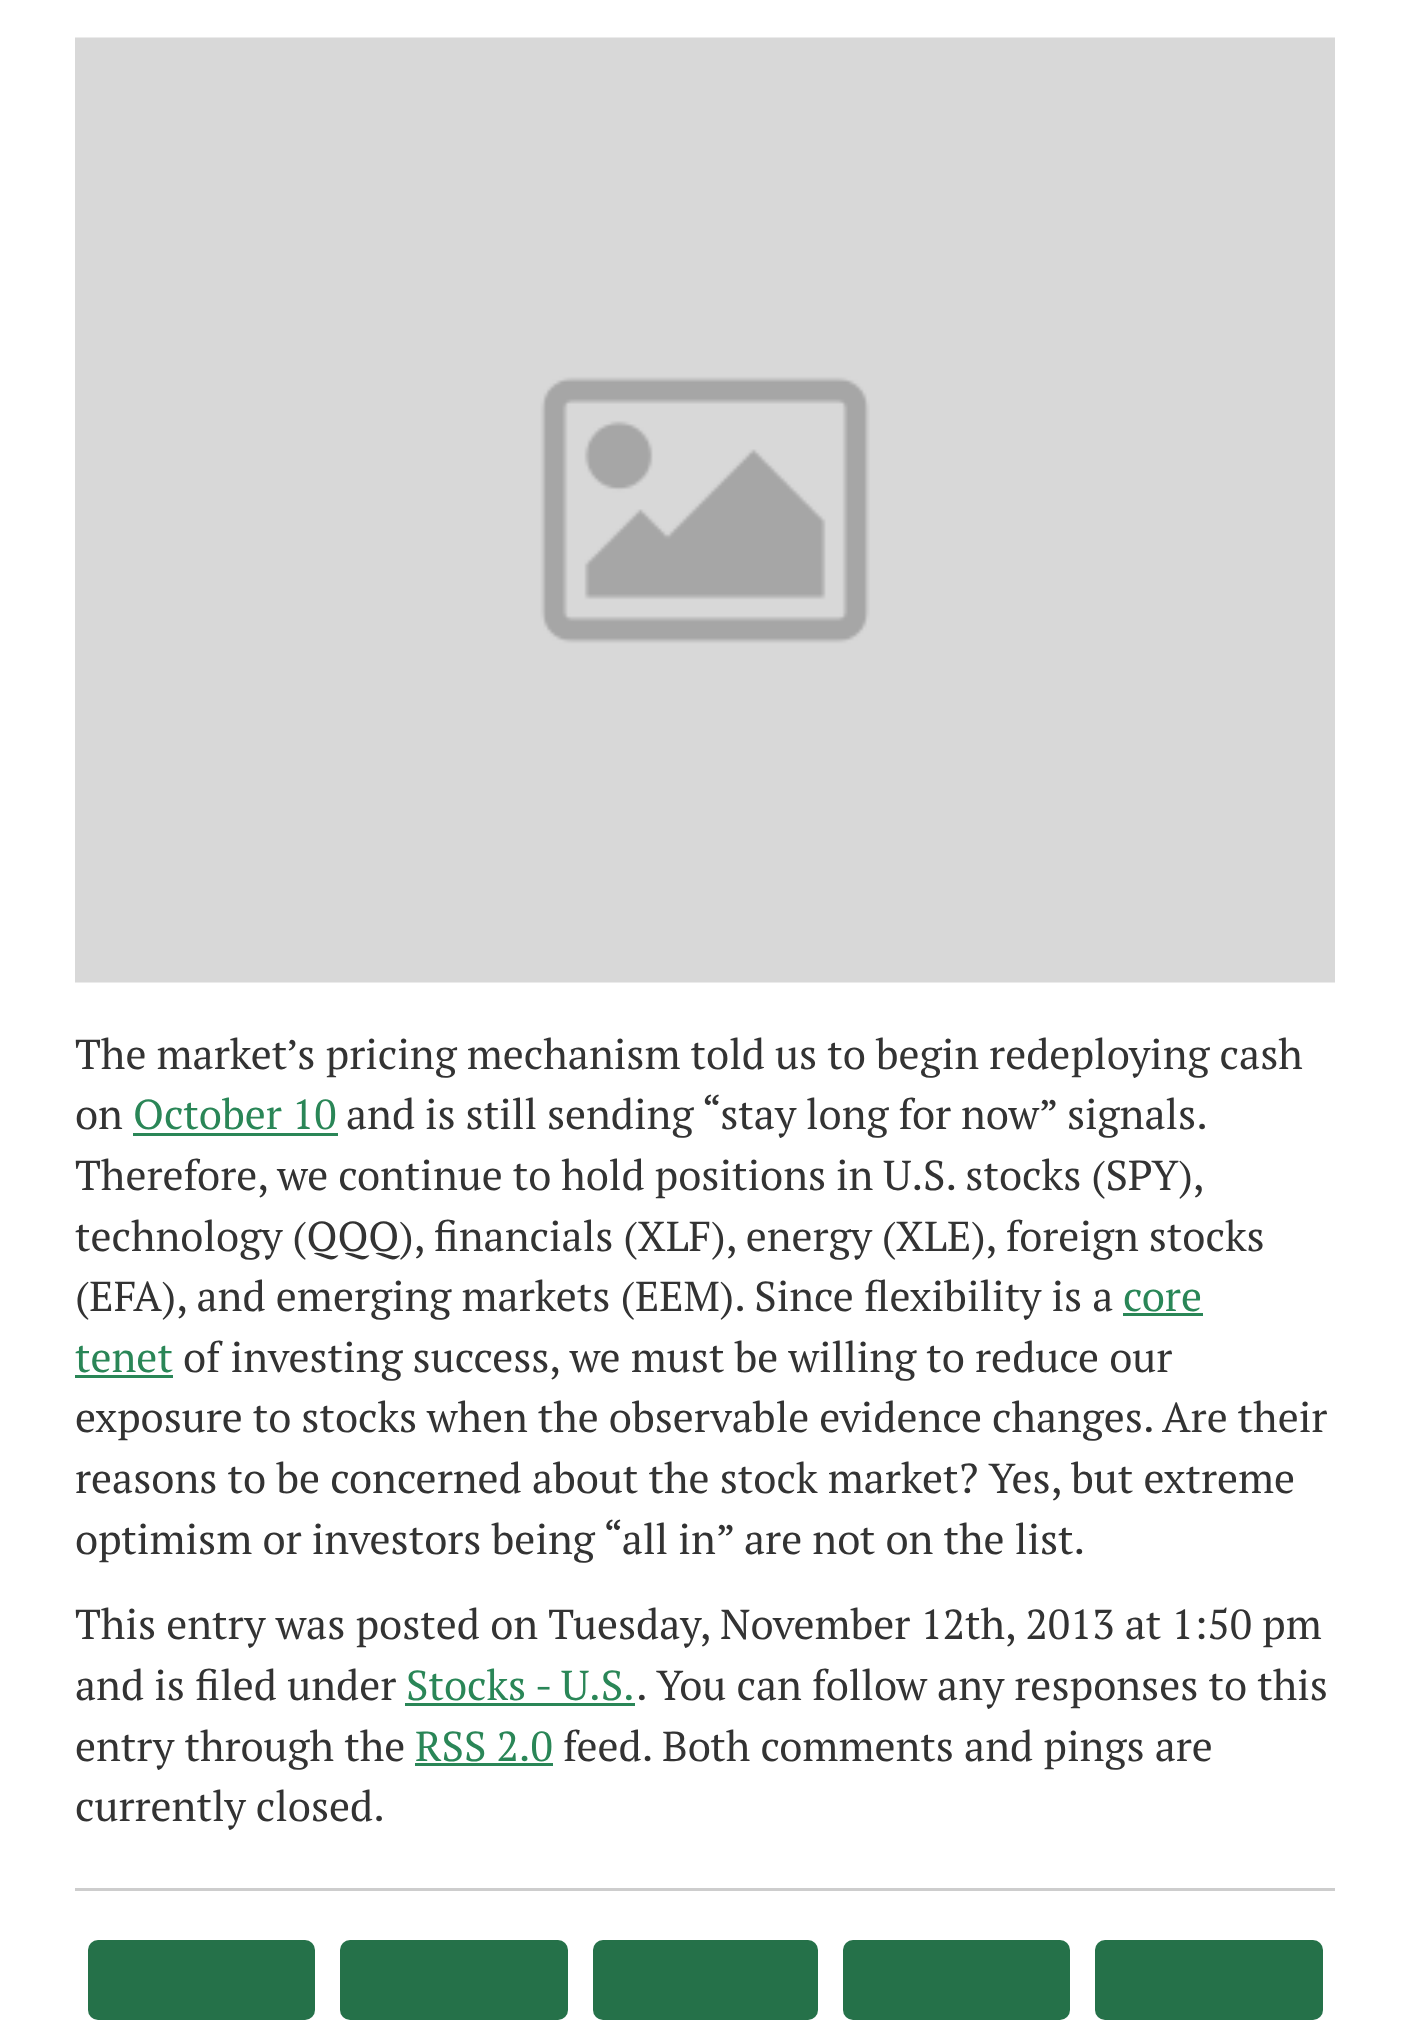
(async () => {
  const canvas = document.querySelector("canvas");
  canvas.width = 1410;
  canvas.height = 2027;
  const ctx = canvas.getContext("2d");
  ctx.miterLimit = 4;
  ctx.fontKerning = "normal";
  async function loadImage(src) {
    const img = new Image();
    img.src = src;
    await img.decode();
    return img;
  }

  ctx.fillStyle = "#ffffff";
  ctx.fillRect(0, 0, 1410, 2027);
  ctx.drawImage(await loadImage("img/1.png"), 75, 37, 1260, 946);
  for (const [x, y, w, h, color] of [
    [133, 1133, 205, 3, "#2a8657"],
    [1123, 1313, 80, 3, "#2a8657"],
    [75, 1375, 98, 3, "#2a8657"],
    [405, 1703, 230, 3, "#2a8657"],
    [415, 1763, 138, 3, "#2a8657"],
    [75, 1888, 1260, 3, "#cdcdcd"],
  ]) {
    ctx.fillStyle = color;
    ctx.fillRect(x, y, w, h);
  }
  ctx.fillStyle = "#257149";
  ctx.beginPath();
  ctx.roundRect(88, 1940, 227, 80, 10);
  ctx.fill();
  ctx.beginPath();
  ctx.roundRect(340, 1940, 228, 80, 10);
  ctx.fill();
  ctx.beginPath();
  ctx.roundRect(593, 1940, 225, 80, 10);
  ctx.fill();
  ctx.beginPath();
  ctx.roundRect(843, 1940, 227, 80, 10);
  ctx.fill();
  ctx.beginPath();
  ctx.roundRect(1095, 1940, 228, 80, 10);
  ctx.fill();
  ctx.wordSpacing = "-0.1px";
  ctx.font = "41.8px PT Serif";
  ctx.fillStyle = "#333333";
  ctx.fillText("The market’s pricing mechanism told us to begin redeploying cash", 75, 1069);
  ctx.wordSpacing = "0px";
  ctx.fillText("on", 75, 1129);
  ctx.fillStyle = "#2a8657";
  ctx.fillText("October 10", 133, 1129);
  ctx.wordSpacing = "-0.25px";
  ctx.fillStyle = "#333333";
  for (const [text, x, y] of [
    ["and is still sending “stay long for now” signals.", 346, 1129],
    ["Therefore, we continue to hold positions in U.S. stocks (SPY),", 75, 1190],
    ["technology (QQQ), financials (XLF), energy (XLE), foreign stocks", 75, 1251],
  ]) {
    ctx.fillText(text, x, y);
  }
  ctx.wordSpacing = "0px";
  ctx.fillText("(EFA), and emerging markets (EEM). Since flexibility is a", 75, 1311);
  ctx.fillStyle = "#2a8657";
  ctx.fillText("core", 1123, 1311);
  ctx.fillText("tenet", 75, 1372);
  ctx.fillStyle = "#333333";
  ctx.fillText("of investing success, we must be willing to reduce our", 183, 1372);
  ctx.wordSpacing = "-0.25px";
  ctx.fillText("exposure to stocks when the observable evidence changes. Are their", 75, 1432);
  ctx.wordSpacing = "0px";
  for (const [text, x, y] of [
    ["reasons to be concerned about the stock market? Yes, but extreme", 75, 1493],
    ["optimism or investors being “all in” are not on the list.", 75, 1554],
    ["This entry was posted on Tuesday, November 12th, 2013 at 1:50 pm", 75, 1639],
    ["and is filed under", 75, 1700],
  ]) {
    ctx.fillText(text, x, y);
  }
  ctx.fillStyle = "#2a8657";
  ctx.fillText("Stocks - U.S.", 406, 1700);
  ctx.fillStyle = "#333333";
  ctx.fillText(". You can follow any responses to this", 636, 1700);
  ctx.fillText("entry through the", 75, 1761);
  ctx.fillStyle = "#2a8657";
  ctx.fillText("RSS 2.0", 415, 1761);
  ctx.fillStyle = "#333333";
  ctx.fillText("feed. Both comments and pings are", 563, 1761);
  ctx.fillText("currently closed.", 75, 1821);
})();
